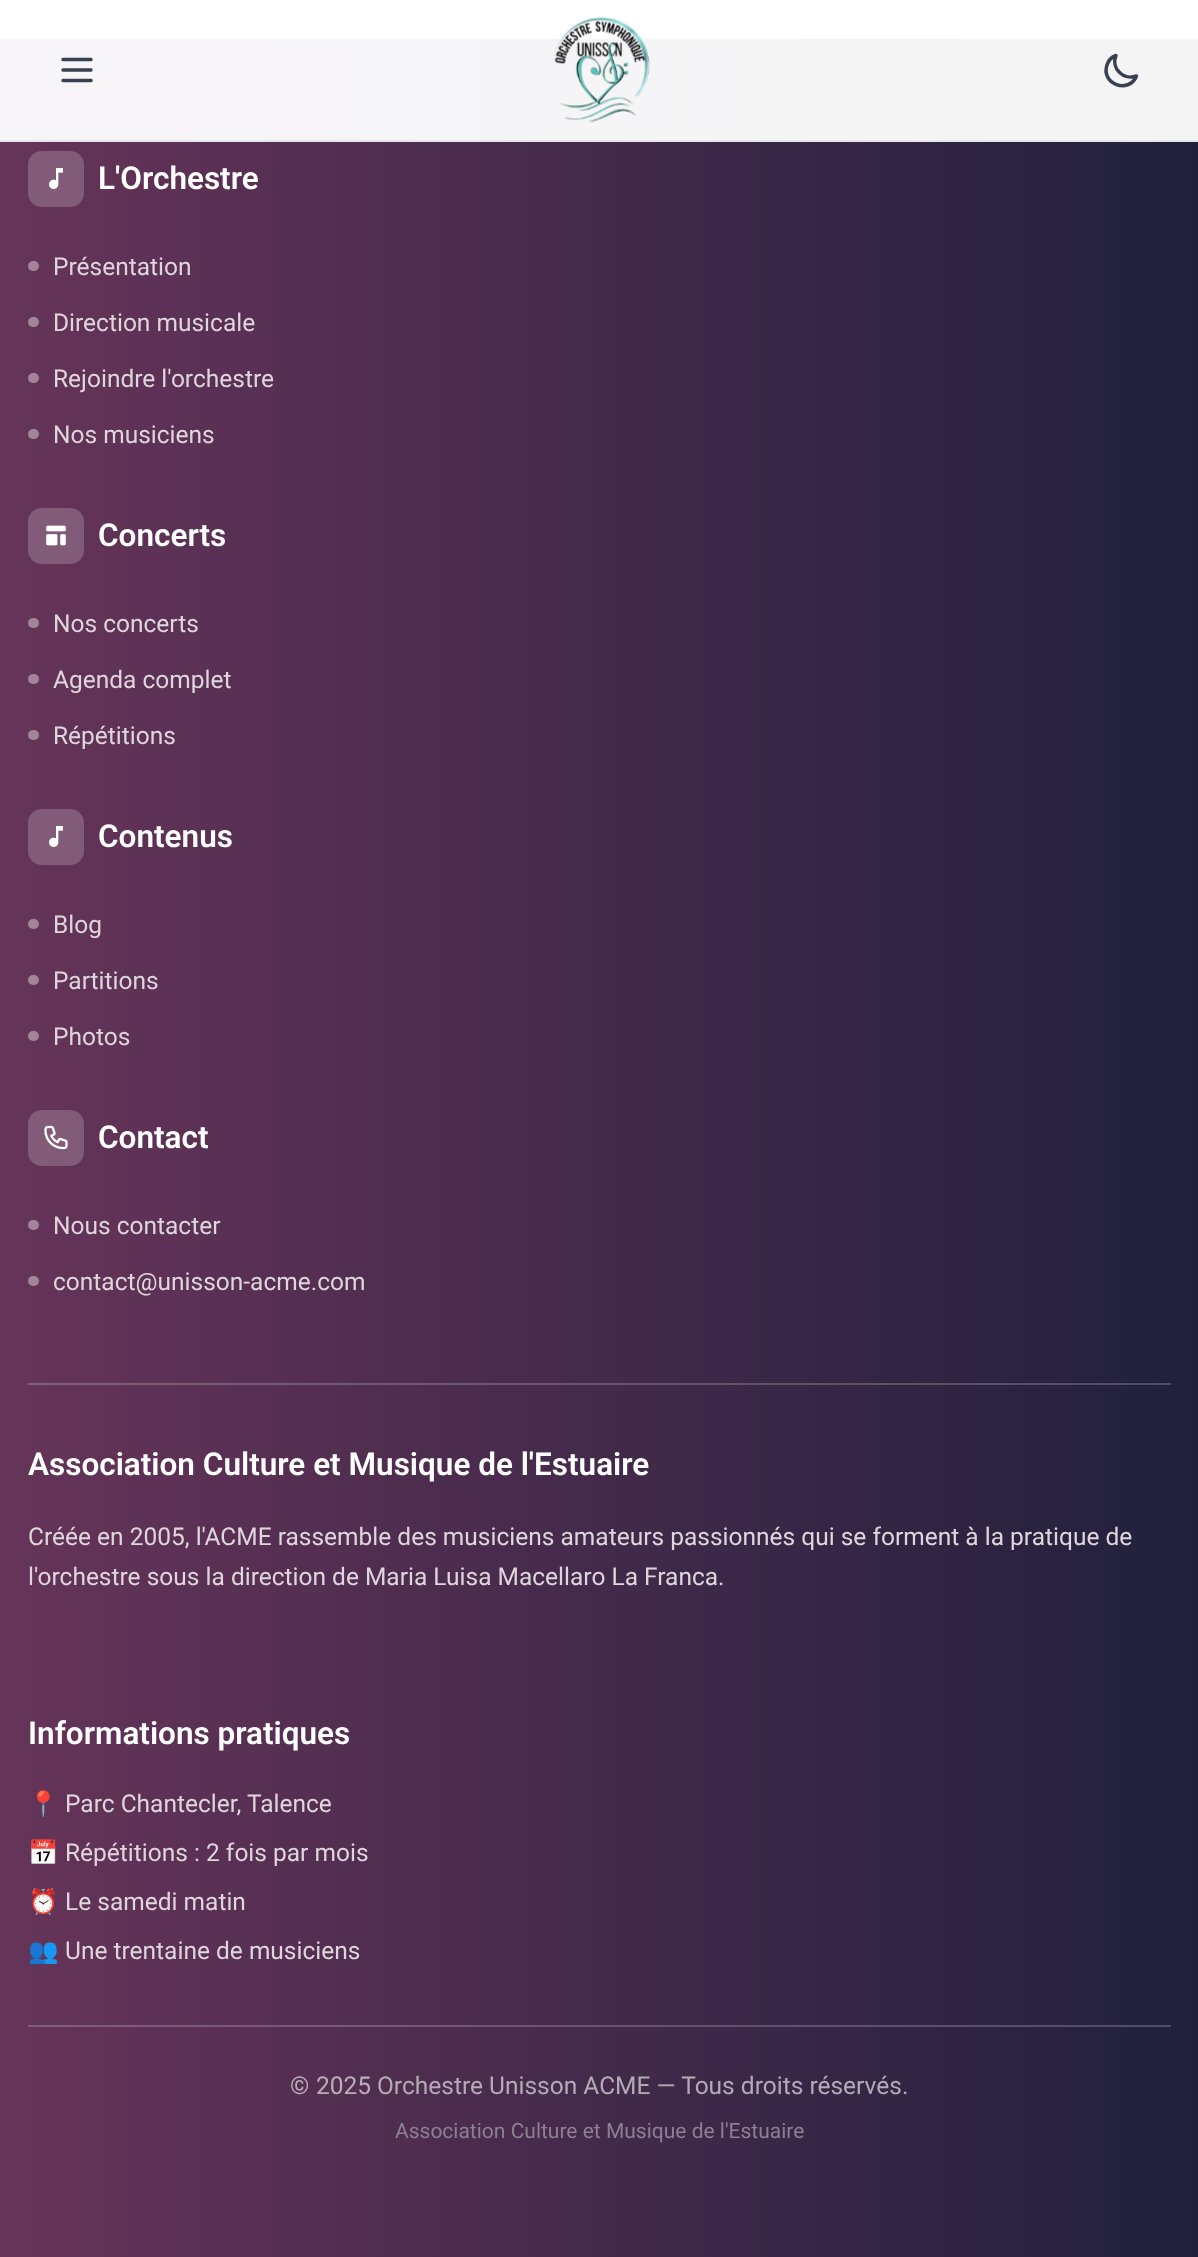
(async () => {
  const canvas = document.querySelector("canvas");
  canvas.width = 1198;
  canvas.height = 2257;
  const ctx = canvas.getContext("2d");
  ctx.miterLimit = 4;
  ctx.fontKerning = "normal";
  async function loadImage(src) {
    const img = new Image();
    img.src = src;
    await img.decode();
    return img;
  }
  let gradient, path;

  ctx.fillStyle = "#ffffff";
  ctx.fillRect(0, 0, 1198, 2257);
  ctx.fillStyle = "#e5e7eb";
  ctx.fillRect(0, 140, 1198, 2);
  gradient = ctx.createLinearGradient(0, 1148, 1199, 1148);
  gradient.addColorStop(0, "#f7f5f7");
  gradient.addColorStop(1, "#f4f4f5");
  ctx.fillStyle = gradient;
  ctx.fillRect(0, 39, 1198, 101);
  path = new Path2D("M63 70H91M63 59.5H91M63 80.5H91");
  ctx.strokeStyle = "#374151";
  ctx.lineWidth = 3.5;
  ctx.lineCap = "round";
  ctx.lineJoin = "round";
  ctx.stroke(path);
  ctx.drawImage(await loadImage("img/1.png"), 554, 17, 96, 106);
  path = new Path2D("M1136.5 76C1123.5 81 1110.5 68 1116 55.5C1111.5 57 1108.5 60.5 1107 65C1100.5 84 1129 94.5 1136.5 76Z");
  ctx.stroke(path);
  gradient = ctx.createLinearGradient(0, 1148, 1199, 1148);
  gradient.addColorStop(0, "#663459");
  gradient.addColorStop(1, "#20203c");
  ctx.fillStyle = gradient;
  ctx.fillRect(0, 142, 1198, 2115);
  gradient = ctx.createLinearGradient(0, 1148, 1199, 1148);
  gradient.addColorStop(0, "#855d7a");
  gradient.addColorStop(1, "#4d4d63");
  ctx.fillStyle = gradient;
  ctx.fillRect(28, 2025, 1143, 2);
  ctx.fillRect(28, 1383, 1143, 2);
  ctx.fillStyle = "rgba(255, 255, 255, 0.2)";
  ctx.beginPath();
  ctx.roundRect(28, 151, 56, 56, 14);
  ctx.fill();
  ctx.drawImage(await loadImage("img/2.png"), 49, 168, 14, 21);
  ctx.fillStyle = "#a2859b";
  ctx.beginPath();
  ctx.roundRect(28, 261, 11, 10, 5);
  ctx.fill();
  ctx.beginPath();
  ctx.roundRect(28, 317, 11, 10, 5);
  ctx.fill();
  ctx.beginPath();
  ctx.roundRect(28, 373, 11, 10, 5);
  ctx.fill();
  ctx.beginPath();
  ctx.roundRect(28, 429, 11, 10, 5);
  ctx.fill();
  ctx.fillStyle = "rgba(255, 255, 255, 0.2)";
  ctx.beginPath();
  ctx.roundRect(28, 508, 56, 56, 14);
  ctx.fill();
  ctx.drawImage(await loadImage("img/3.png"), 46, 525, 20, 21);
  ctx.fillStyle = "#a2859b";
  ctx.beginPath();
  ctx.roundRect(28, 618, 11, 10, 5);
  ctx.fill();
  ctx.beginPath();
  ctx.roundRect(28, 674, 11, 10, 5);
  ctx.fill();
  ctx.beginPath();
  ctx.roundRect(28, 730, 11, 10, 5);
  ctx.fill();
  ctx.fillStyle = "rgba(255, 255, 255, 0.2)";
  ctx.beginPath();
  ctx.roundRect(28, 809, 56, 56, 14);
  ctx.fill();
  ctx.drawImage(await loadImage("img/2.png"), 49, 826, 14, 21);
  ctx.fillStyle = "#a2859b";
  ctx.beginPath();
  ctx.roundRect(28, 919, 11, 10, 5);
  ctx.fill();
  ctx.beginPath();
  ctx.roundRect(28, 975, 11, 10, 5);
  ctx.fill();
  ctx.beginPath();
  ctx.roundRect(28, 1031, 11, 10, 5);
  ctx.fill();
  ctx.fillStyle = "rgba(255, 255, 255, 0.2)";
  ctx.beginPath();
  ctx.roundRect(28, 1110, 56, 56, 14);
  ctx.fill();
  ctx.drawImage(await loadImage("img/4.png"), 44, 1125, 24, 25);
  ctx.fillStyle = "#a2859b";
  ctx.beginPath();
  ctx.roundRect(28, 1220, 11, 10, 5);
  ctx.fill();
  ctx.beginPath();
  ctx.roundRect(28, 1276, 11, 10, 5);
  ctx.fill();
  ctx.font = "600 31.5px Roboto";
  ctx.fillStyle = "#ffffff";
  ctx.fillText("L'Orchestre", 98, 189);
  ctx.font = "24.5px Roboto";
  ctx.fillStyle = "#dfd6dd";
  for (const [text, x, y] of [
    ["Présentation", 53, 275],
    ["Direction musicale", 53, 331],
    ["Rejoindre l'orchestre", 53, 387],
    ["Nos musiciens", 53, 443],
  ]) {
    ctx.fillText(text, x, y);
  }
  ctx.font = "600 31.5px Roboto";
  ctx.fillStyle = "#ffffff";
  ctx.fillText("Concerts", 98, 546);
  ctx.font = "24.5px Roboto";
  ctx.fillStyle = "#dfd6dd";
  for (const [text, x, y] of [
    ["Nos concerts", 53, 632],
    ["Agenda complet", 53, 688],
    ["Répétitions", 53, 744],
  ]) {
    ctx.fillText(text, x, y);
  }
  ctx.font = "600 31.5px Roboto";
  ctx.fillStyle = "#ffffff";
  ctx.fillText("Contenus", 98, 847);
  ctx.font = "24.5px Roboto";
  ctx.fillStyle = "#dfd6dd";
  for (const [text, x, y] of [
    ["Blog", 53, 933],
    ["Partitions", 53, 989],
    ["Photos", 53, 1045],
  ]) {
    ctx.fillText(text, x, y);
  }
  ctx.font = "600 31.5px Roboto";
  ctx.fillStyle = "#ffffff";
  ctx.fillText("Contact", 98, 1148);
  ctx.font = "24.5px Roboto";
  ctx.fillStyle = "#dfd6dd";
  ctx.fillText("Nous contacter", 53, 1234);
  ctx.fillText("contact@unisson-acme.com", 53, 1290);
  ctx.font = "600 31.5px Roboto";
  ctx.fillStyle = "#ffffff";
  ctx.fillText("Association Culture et Musique de l'Estuaire", 28, 1475);
  ctx.font = "24.5px Roboto";
  ctx.fillStyle = "#dfd6dd";
  ctx.fillText("Créée en 2005, l'ACME rassemble des musiciens amateurs passionnés qui se forment à la pratique de", 28, 1545);
  ctx.fillText("l'orchestre sous la direction de Maria Luisa Macellaro La Franca.", 28, 1585);
  ctx.font = "600 31.5px Roboto";
  ctx.fillStyle = "#ffffff";
  ctx.fillText("Informations pratiques", 28, 1744);
  ctx.font = "24.5px Noto Color Emoji";
  ctx.fillStyle = "#dfd6dd";
  ctx.fillText("📍", 28, 1812);
  ctx.font = "24.5px Roboto";
  ctx.fillText("Parc Chantecler, Talence", 65, 1812);
  ctx.font = "24.5px Noto Color Emoji";
  ctx.fillText("📅", 28, 1861);
  ctx.font = "24.5px Roboto";
  ctx.fillText("Répétitions : 2 fois par mois", 65, 1861);
  ctx.font = "24.5px Noto Color Emoji";
  ctx.fillText("⏰", 28, 1910);
  ctx.font = "24.5px Roboto";
  ctx.fillText("Le samedi matin", 65, 1910);
  ctx.font = "24.5px Noto Color Emoji";
  ctx.fillText("👥", 28, 1959);
  ctx.font = "24.5px Roboto";
  ctx.fillText("Une trentaine de musiciens", 65, 1959);
  ctx.fillStyle = "#bbacba";
  ctx.fillText("©", 290, 2094);
  ctx.fillText("2025", 316, 2094);
  ctx.fillStyle = "#b3aab6";
  ctx.fillText("Orchestre Unisson ACME — Tous droits réservés.", 377, 2094);
  ctx.font = "21px Roboto";
  ctx.fillStyle = "#8e7f93";
  ctx.fillText("Association Culture et Musique de l'Estuaire", 395, 2138);
})();
